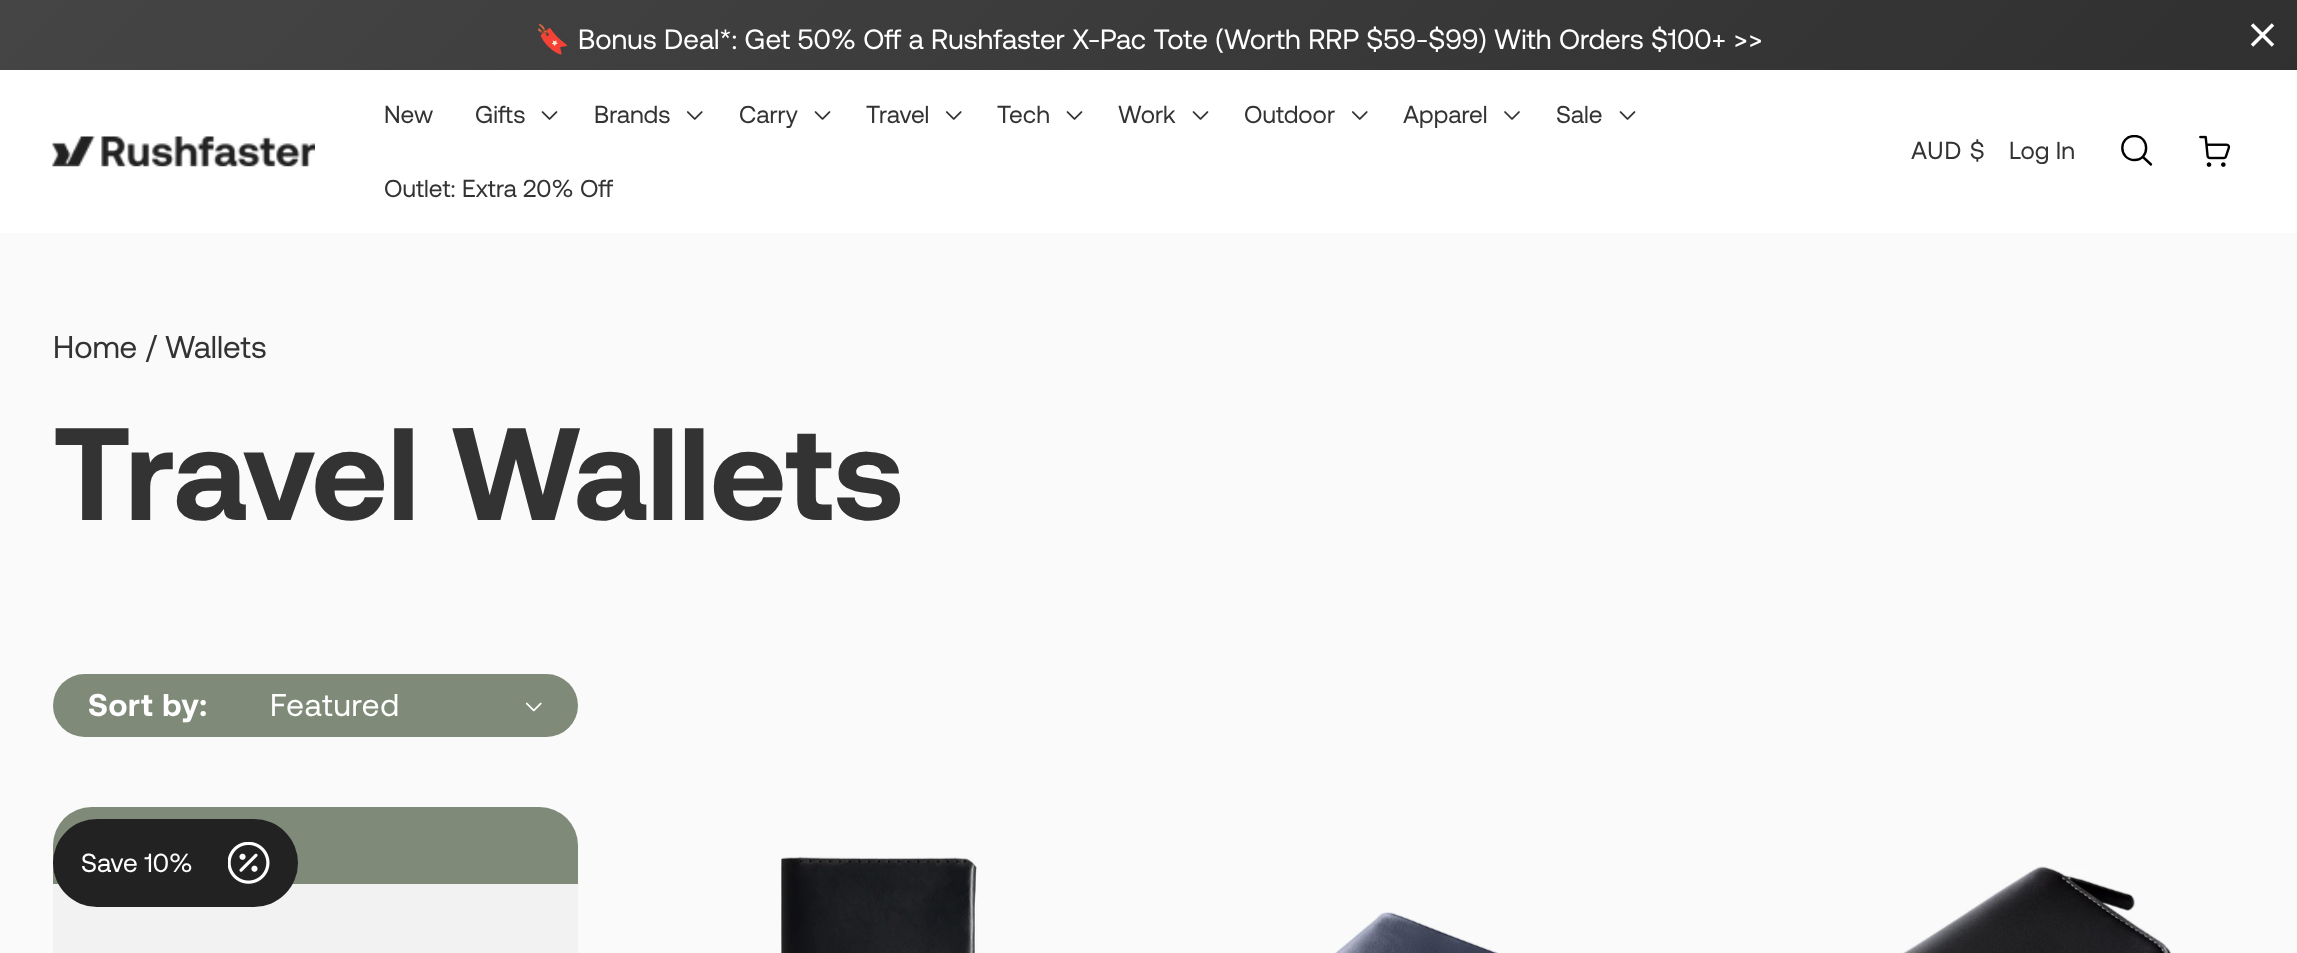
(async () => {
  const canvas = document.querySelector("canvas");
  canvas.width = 2297;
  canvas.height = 953;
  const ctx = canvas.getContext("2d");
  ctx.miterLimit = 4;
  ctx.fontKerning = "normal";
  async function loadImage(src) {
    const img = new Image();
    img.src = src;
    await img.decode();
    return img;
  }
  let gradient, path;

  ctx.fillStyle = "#fafafa";
  ctx.fillRect(0, 0, 2297, 953);
  gradient = ctx.createLinearGradient(557, -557, 1741, 627);
  gradient.addColorStop(0, "#454545");
  gradient.addColorStop(1, "#303030");
  ctx.fillStyle = gradient;
  ctx.fillRect(0, 0, 2297, 70);
  path = new Path2D("M2273 24.5L2252 45.5M2273 45.5L2252 24.5");
  ctx.strokeStyle = "#ffffff";
  ctx.lineWidth = 3.5;
  ctx.stroke(path);
  ctx.fillStyle = "#ffffff";
  ctx.fillRect(0, 70, 2297, 163);
  ctx.drawImage(await loadImage("img/1.png"), 52, 136, 263, 31);
  ctx.drawImage(await loadImage("img/2.png"), 541, 111, 17, 9);
  ctx.drawImage(await loadImage("img/3.png"), 687, 111, 16, 9);
  ctx.drawImage(await loadImage("img/2.png"), 814, 111, 17, 9);
  ctx.drawImage(await loadImage("img/3.png"), 946, 111, 16, 9);
  ctx.drawImage(await loadImage("img/2.png"), 1066, 111, 17, 9);
  ctx.drawImage(await loadImage("img/2.png"), 1192, 111, 17, 9);
  ctx.drawImage(await loadImage("img/3.png"), 1352, 111, 16, 9);
  ctx.drawImage(await loadImage("img/4.png"), 1504, 111, 16, 9);
  ctx.drawImage(await loadImage("img/2.png"), 1619, 111, 17, 9);
  ctx.save();
  ctx.beginPath();
  ctx.rect(2121, 135, 32, 31);
  ctx.clip();
  path = new Path2D("M2134.5 160C2150 160 2150 136 2134.5 136C2118 136 2118.5 160 2134.5 160Z");
  ctx.strokeStyle = "#000000";
  ctx.lineWidth = 2.4;
  ctx.lineCap = "round";
  ctx.lineJoin = "round";
  ctx.stroke(path);
  ctx.restore();
  path = new Path2D("M2151 164.5L2143 157");
  ctx.strokeStyle = "#000000";
  ctx.lineWidth = 2.4;
  ctx.lineCap = "round";
  ctx.lineJoin = "round";
  ctx.stroke(path);
  ctx.drawImage(await loadImage("img/5.png"), 2199, 135, 32, 32);
  ctx.fillStyle = "#7f8b78";
  ctx.beginPath();
  ctx.roundRect(53, 674, 525, 63, 31.5);
  ctx.fill();
  ctx.drawImage(await loadImage("img/6.png"), 525, 702, 17, 10);
  ctx.beginPath();
  ctx.roundRect(53, 807, 525, 77, [38.5, 38.5, 0, 0]);
  ctx.fill();
  ctx.fillStyle = "#f3f2f2";
  ctx.fillRect(53, 884, 525, 69);
  ctx.drawImage(await loadImage("img/7.png"), 781, 856, 196, 97);
  ctx.drawImage(await loadImage("img/8.png"), 1331, 912, 168, 41);
  ctx.drawImage(await loadImage("img/9.png"), 1903, 866, 269, 87);
  ctx.fillStyle = "#222222";
  ctx.beginPath();
  ctx.roundRect(53, 819, 245, 88, 44);
  ctx.fill();
  ctx.drawImage(await loadImage("img/10.png"), 228, 842, 42, 42);
  ctx.font = "28px Noto Color Emoji";
  ctx.fillStyle = "#ffffff";
  ctx.fillText("🔖", 535, 49);
  ctx.font = "28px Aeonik";
  ctx.fillText("Bonus Deal*: Get 50% Off a Rushfaster X-Pac Tote (Worth RRP $59-$99) With Orders $100+ >>", 578, 49);
  ctx.font = "24.5px Aeonik";
  ctx.fillStyle = "#333333";
  for (const [text, x, y] of [
    ["New", 384, 123],
    ["Gifts", 475, 123],
    ["Brands", 594, 123],
    ["Carry", 739, 123],
    ["Travel", 866, 123],
    ["Tech", 997, 123],
    ["Work", 1118, 123],
    ["Outdoor", 1244, 123],
    ["Apparel", 1403, 123],
    ["Sale", 1556, 123],
    ["Outlet: Extra 20% Off", 384, 197],
  ]) {
    ctx.fillText(text, x, y);
  }
  ctx.letterSpacing = "1px";
  ctx.fillText("AUD $", 1911, 159);
  ctx.letterSpacing = "0px";
  ctx.fillText("Log In", 2009, 159);
  ctx.font = "31.5px Aeonik";
  ctx.fillText("Home / Wallets", 53, 358);
  ctx.font = "bold 131.25px Aeonik";
  ctx.fillText("Travel Wallets", 53, 520);
  ctx.letterSpacing = "0.75px";
  ctx.font = "bold 31.5px Aeonik";
  ctx.fillStyle = "#ffffff";
  ctx.fillText("Sort by:", 88, 716);
  ctx.font = "31.5px Aeonik";
  ctx.fillText("Featured", 270, 716);
  ctx.letterSpacing = "0px";
  ctx.font = "26.25px Aeonik";
  ctx.fillText("Save 10%", 81, 872);
})();
